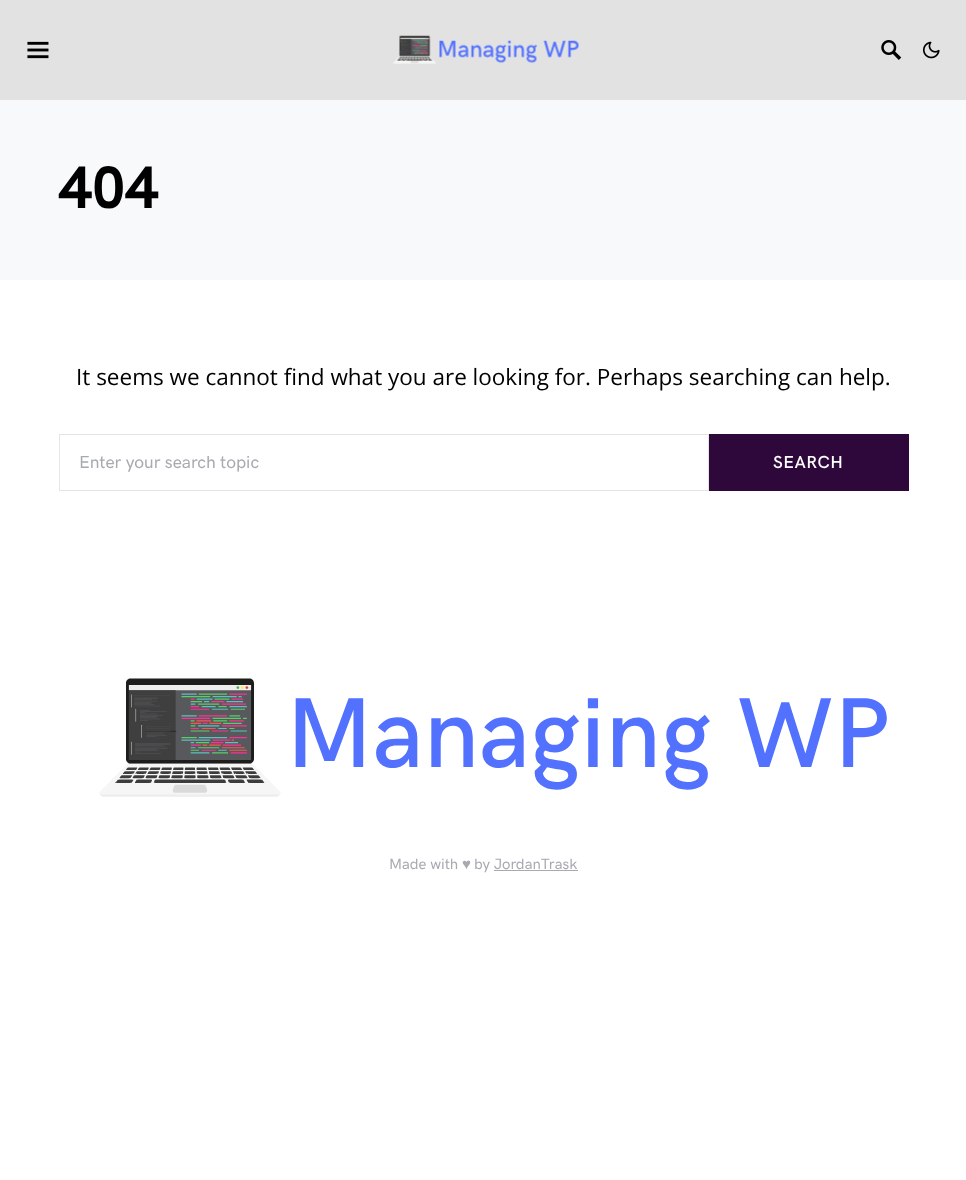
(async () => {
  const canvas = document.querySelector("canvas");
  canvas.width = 966;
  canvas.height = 1180;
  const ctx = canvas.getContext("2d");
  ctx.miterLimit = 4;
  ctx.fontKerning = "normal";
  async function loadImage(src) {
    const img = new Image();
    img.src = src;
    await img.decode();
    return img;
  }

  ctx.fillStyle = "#ffffff";
  ctx.fillRect(0, 0, 966, 1180);
  ctx.fillStyle = "#e2e2e2";
  ctx.fillRect(0, 0, 966, 100);
  ctx.drawImage(await loadImage("img/1.png"), 27, 41, 22, 18);
  ctx.drawImage(await loadImage("img/2.png"), 393, 35, 186, 29);
  ctx.drawImage(await loadImage("img/3.png"), 881, 40, 21, 20);
  ctx.drawImage(await loadImage("img/4.png"), 923, 41, 17, 18);
  ctx.fillStyle = "#f8f9fa";
  ctx.fillRect(0, 100, 966, 180);
  ctx.strokeStyle = "#e3e5e7";
  ctx.strokeRect(59.5, 434.5, 649, 56);
  ctx.fillStyle = "#2e073b";
  ctx.fillRect(709, 434, 200, 57);
  ctx.drawImage(await loadImage("img/5.png"), 99, 678, 788, 119);
  ctx.fillStyle = "#a8aab2";
  ctx.fillRect(494, 870, 84, 1);
  ctx.letterSpacing = "-1.5px";
  ctx.font = "bold 60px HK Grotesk";
  ctx.fillStyle = "#000000";
  ctx.fillText("404", 58, 208);
  ctx.letterSpacing = "0px";
  ctx.font = "22.5px Open Sans";
  ctx.fillText("It seems we cannot find what you are looking for. Perhaps searching can help.", 76, 385);
  ctx.font = "500 17.5px HK Grotesk";
  ctx.fillStyle = "#a8aab2";
  ctx.fillText("Enter your search topic", 79, 468);
  ctx.letterSpacing = "0.5px";
  ctx.font = "600 17.5px HK Grotesk";
  ctx.fillStyle = "#ffffff";
  ctx.fillText("SEARCH", 773, 468);
  ctx.letterSpacing = "0px";
  ctx.font = "500 15px HK Grotesk";
  ctx.fillStyle = "#a8aab2";
  ctx.fillText("Made with", 389, 869);
  ctx.font = "15px Liberation Sans";
  ctx.fillText("♥", 462, 869);
  ctx.font = "500 15px HK Grotesk";
  ctx.fillText("by JordanTrask", 474, 869);
})();
